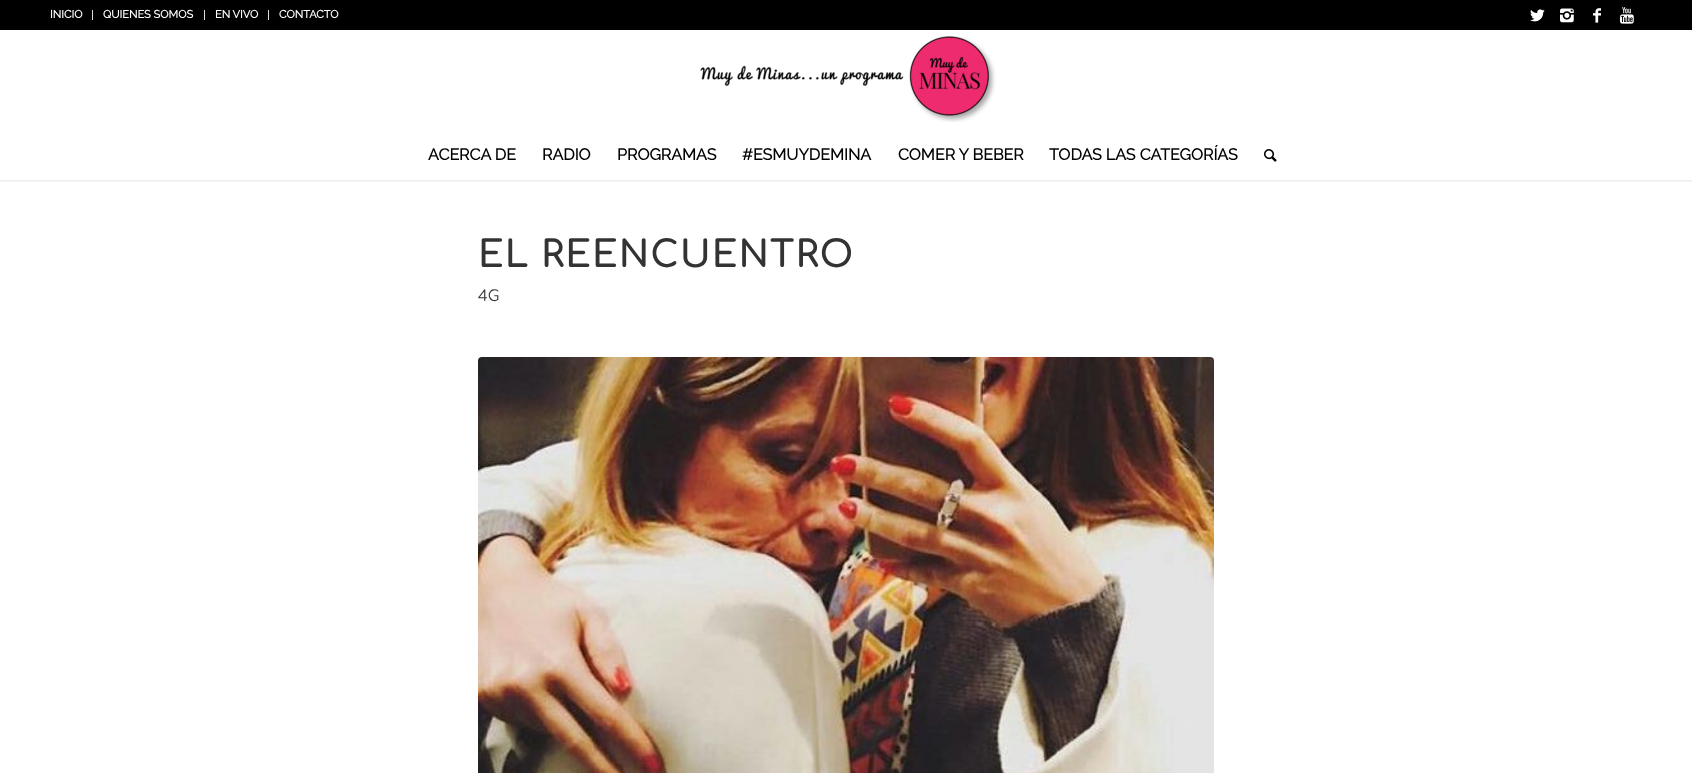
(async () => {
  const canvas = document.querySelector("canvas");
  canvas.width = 1692;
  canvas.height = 773;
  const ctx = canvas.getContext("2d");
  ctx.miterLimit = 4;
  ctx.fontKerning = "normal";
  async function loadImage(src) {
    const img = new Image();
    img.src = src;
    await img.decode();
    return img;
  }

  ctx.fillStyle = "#ffffff";
  ctx.fillRect(0, 0, 1692, 773);
  ctx.save();
  ctx.beginPath();
  ctx.rect(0, 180, 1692, 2);
  ctx.clip();
  ctx.fillStyle = "rgba(0, 0, 0, 0.1)";
  ctx.filter = "blur(1px)";
  ctx.beginPath();
  ctx.rect(-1, -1, 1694, 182);
  ctx.fill();
  ctx.filter = "none";
  ctx.restore();
  for (const [x, y, w, h, color] of [
    [0, 0, 1692, 30, "#000000"],
    [92, 10, 1, 10, "#e1e1e1"],
    [204, 10, 1, 10, "#e1e1e1"],
    [268, 10, 1, 10, "#e1e1e1"],
  ]) {
    ctx.fillStyle = color;
    ctx.fillRect(x, y, w, h);
  }
  ctx.drawImage(await loadImage("img/1.png"), 1530, 9, 15, 13);
  ctx.drawImage(await loadImage("img/2.png"), 1560, 8, 14, 15);
  ctx.drawImage(await loadImage("img/3.png"), 1593, 8, 8, 15);
  ctx.drawImage(await loadImage("img/4.png"), 1620, 7, 14, 17);
  ctx.drawImage(await loadImage("img/5.png"), 700, 36, 296, 86);
  ctx.drawImage(await loadImage("img/6.png"), 1264, 149, 13, 13);
  ctx.drawImage(await loadImage("img/7.png"), 478, 357, 736, 416);
  ctx.font = "bold 11px Raleway";
  ctx.fillStyle = "#ffffff";
  for (const [text, x, y] of [
    ["INICIO", 50, 18],
    ["QUIENES SOMOS", 103, 18],
    ["EN VIVO", 215, 18],
    ["CONTACTO", 279, 18],
  ]) {
    ctx.fillText(text, x, y);
  }
  ctx.font = "bold 16px Raleway";
  ctx.fillStyle = "#000000";
  for (const [text, x, y] of [
    ["ACERCA DE", 428, 160],
    ["RADIO", 542, 160],
    ["PROGRAMAS", 617, 160],
    ["#ESMUYDEMINA", 742, 160],
    ["COMER Y BEBER", 898, 160],
    ["TODAS LAS CATEGORÍAS", 1049, 160],
  ]) {
    ctx.fillText(text, x, y);
  }
  ctx.letterSpacing = "1px";
  ctx.font = "bold 36.75px Comfortaa";
  ctx.fillStyle = "#333333";
  ctx.fillText("EL REENCUENTRO", 478, 267);
  ctx.letterSpacing = "0px";
  ctx.font = "15px Comfortaa";
  ctx.fillText("4G", 478, 301);
})();
